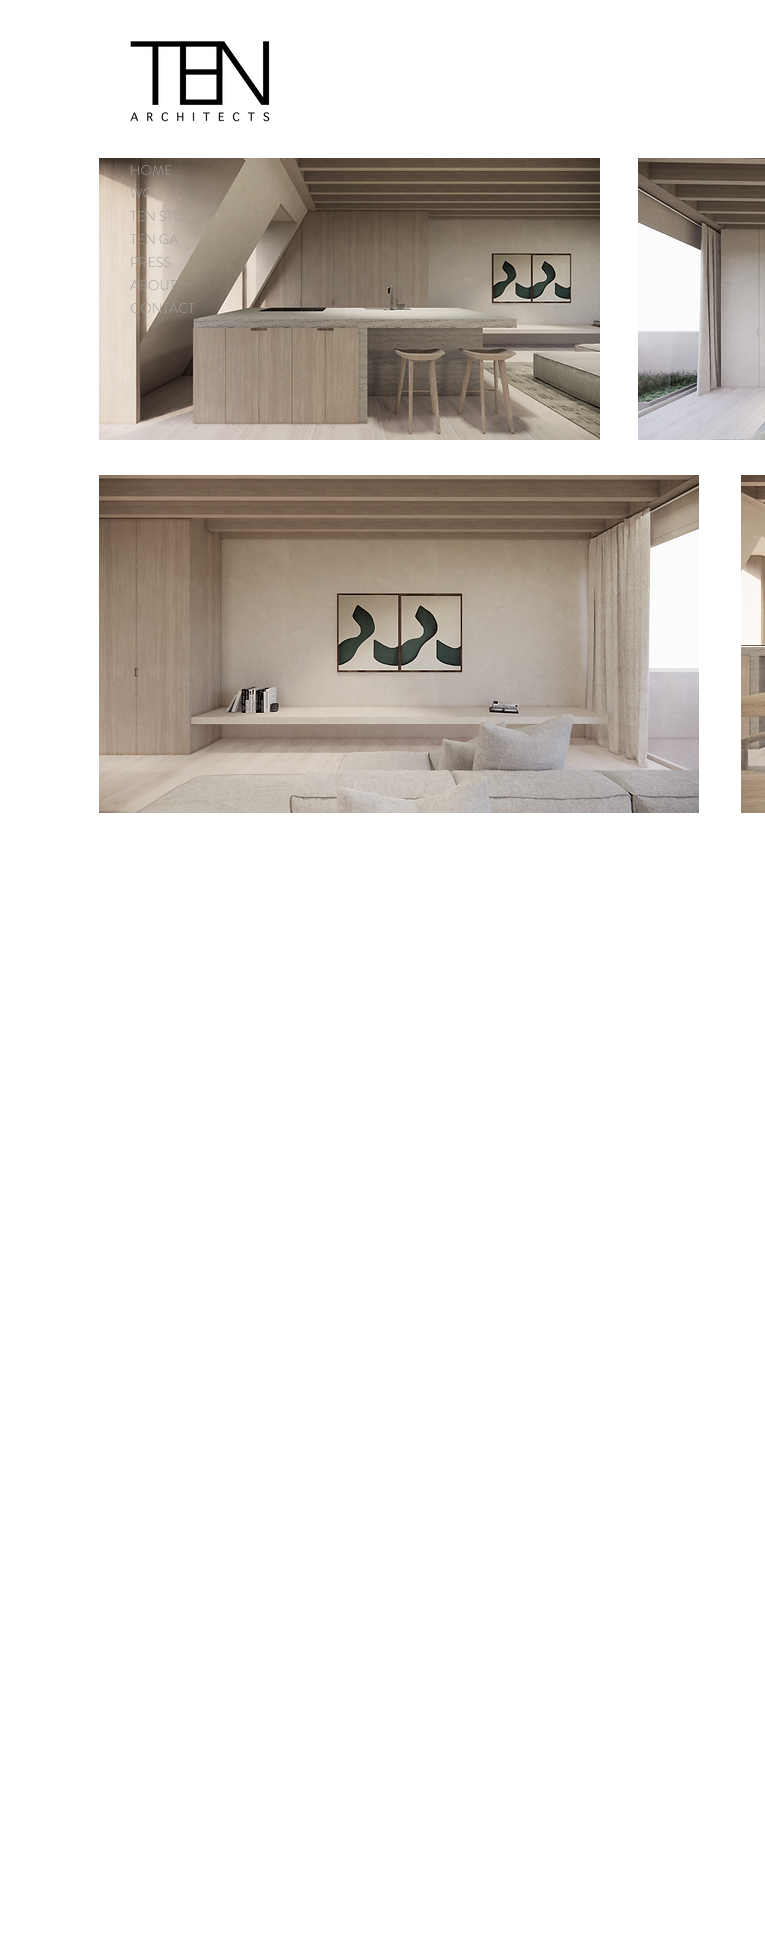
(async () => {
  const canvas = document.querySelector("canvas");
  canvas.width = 765;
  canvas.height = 1959;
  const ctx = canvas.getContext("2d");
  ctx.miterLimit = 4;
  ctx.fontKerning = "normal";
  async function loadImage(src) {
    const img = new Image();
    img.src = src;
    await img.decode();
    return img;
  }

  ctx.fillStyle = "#ffffff";
  ctx.fillRect(0, 0, 765, 1959);
  ctx.drawImage(await loadImage("img/1.png"), 99, 158, 501, 282);
  ctx.drawImage(await loadImage("img/2.png"), 638, 158, 127, 282);
  ctx.drawImage(await loadImage("img/3.png"), 99, 475, 600, 338);
  ctx.drawImage(await loadImage("img/4.png"), 741, 475, 24, 338);
  ctx.drawImage(await loadImage("img/5.png"), 130, 41, 140, 81);
  ctx.font = "300 14px 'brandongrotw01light'";
  ctx.fillStyle = "#a0a0a0";
  for (const [text, x, y] of [
    ["HOME", 130, 175],
    ["WO", 130, 198],
    ["TEN STU", 130, 221],
    ["TEN GA", 130, 244],
    ["PRESS", 130, 267],
    ["ABOUT", 130, 290],
    ["CONTACT", 130, 313],
  ]) {
    ctx.fillText(text, x, y);
  }
})();
